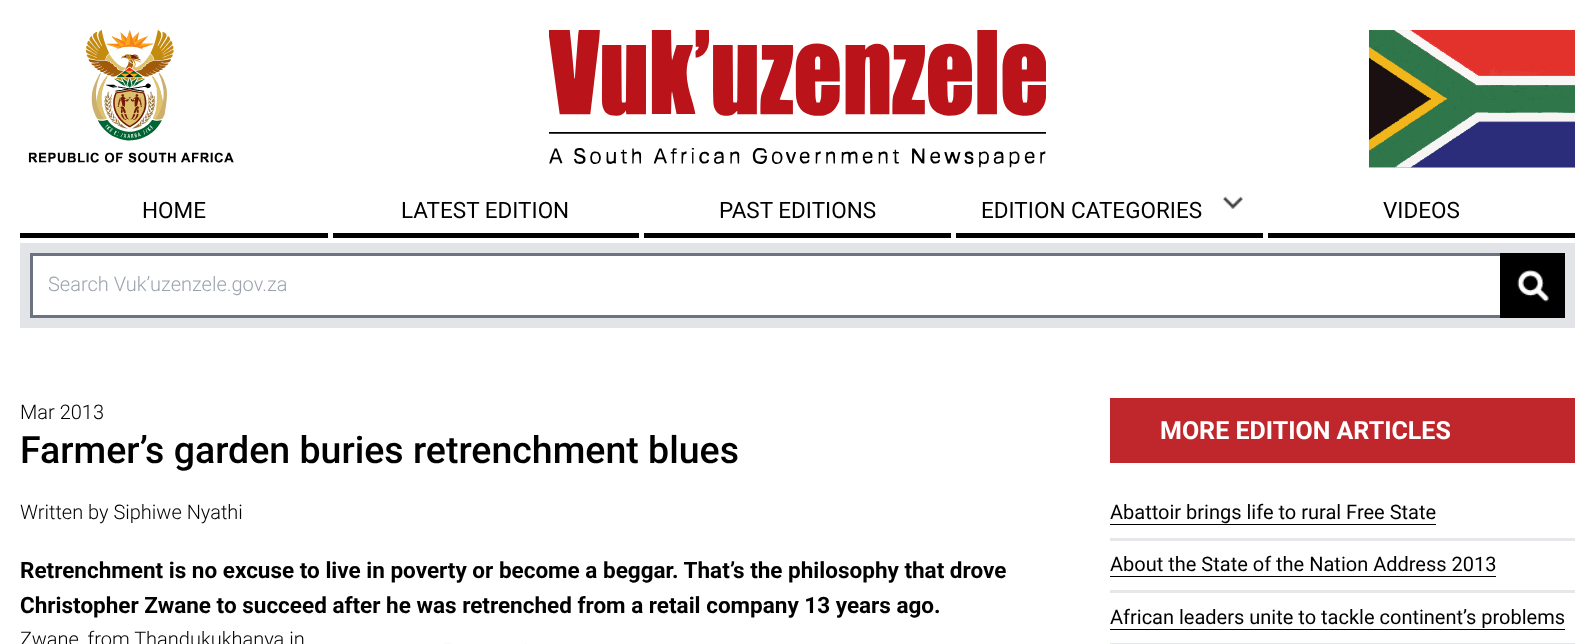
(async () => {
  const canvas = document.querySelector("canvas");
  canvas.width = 1595;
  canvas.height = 644;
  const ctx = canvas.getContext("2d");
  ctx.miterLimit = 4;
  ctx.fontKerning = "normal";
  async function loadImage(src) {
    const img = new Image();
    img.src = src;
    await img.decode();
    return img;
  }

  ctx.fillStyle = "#ffffff";
  ctx.fillRect(0, 0, 1595, 644);
  ctx.drawImage(await loadImage("img/1.png"), 28, 30, 206, 133);
  ctx.drawImage(await loadImage("img/2.png"), 549, 30, 497, 138);
  ctx.drawImage(await loadImage("img/3.png"), 1369, 30, 206, 138);
  for (const [x, y, w, h, color] of [
    [20, 233, 308, 5, "#000000"],
    [333, 233, 306, 5, "#000000"],
    [644, 233, 307, 5, "#000000"],
    [956, 233, 307, 5, "#000000"],
  ]) {
    ctx.fillStyle = color;
    ctx.fillRect(x, y, w, h);
  }
  ctx.drawImage(await loadImage("img/4.png"), 1222, 196, 21, 13);
  for (const [x, y, w, h, color] of [
    [1268, 233, 307, 5, "#000000"],
    [20, 243, 1555, 85, "#e3e4e8"],
    [33, 256, 1467, 59, "#ffffff"],
  ]) {
    ctx.fillStyle = color;
    ctx.fillRect(x, y, w, h);
  }
  ctx.strokeStyle = "#6b7280";
  ctx.lineWidth = 3;
  ctx.strokeRect(31.5, 254.5, 1532, 62);
  ctx.fillStyle = "#000000";
  ctx.fillRect(1500, 253, 65, 65);
  ctx.drawImage(await loadImage("img/5.png"), 1517, 270, 32, 32);
  ctx.drawImage(await loadImage("img/6.png"), 444, 643, 83, 1);
  for (const [x, y, w, h, color] of [
    [1110, 398, 465, 65, "#c0272d"],
    [1110, 538, 465, 3, "#e5e7eb"],
    [1110, 524, 326, 1, "#000000"],
    [1110, 590, 465, 3, "#e5e7eb"],
    [1110, 576, 386, 1, "#000000"],
    [1110, 643, 465, 1, "#e5e7eb"],
    [1110, 629, 455, 1, "#000000"],
  ]) {
    ctx.fillStyle = color;
    ctx.fillRect(x, y, w, h);
  }
  ctx.font = "22.5px Roboto";
  for (const [text, x, y] of [
    ["HOME", 142, 218],
    ["LATEST EDITION", 401, 218],
    ["PAST EDITIONS", 719, 218],
    ["EDITION CATEGORIES", 981, 218],
    ["VIDEOS", 1383, 218],
  ]) {
    ctx.fillText(text, x, y);
  }
  ctx.font = "300 20px Roboto";
  ctx.fillStyle = "#9ca3af";
  ctx.fillText("Search Vuk’uzenzele.gov.za", 48, 291);
  ctx.fillStyle = "#000000";
  ctx.fillText("Mar 2013", 20, 419);
  ctx.font = "500 37.5px Roboto";
  ctx.fillText("Farmer’s garden buries retrenchment blues", 20, 463);
  ctx.font = "300 20px Roboto";
  ctx.fillText("Written by Siphiwe Nyathi", 20, 519);
  ctx.font = "bold 22.5px Roboto";
  ctx.fillText("Retrenchment is no excuse to live in poverty or become a beggar. That’s the philosophy that drove", 20, 578);
  ctx.fillText("Christopher Zwane to succeed after he was retrenched from a retail company 13 years ago.", 20, 613);
  ctx.font = "300 20px Roboto";
  ctx.fillText("Zwane, from Thandukukhanya in", 20, 646);
  ctx.font = "bold 25px Roboto";
  ctx.fillStyle = "#ffffff";
  ctx.fillText("MORE EDITION ARTICLES", 1160, 439);
  ctx.font = "20px Roboto";
  ctx.fillStyle = "#000000";
  for (const [text, x, y] of [
    ["Abattoir brings life to rural Free State", 1110, 519],
    ["About the State of the Nation Address 2013", 1110, 571],
    ["African leaders unite to tackle continent’s problems", 1110, 624],
  ]) {
    ctx.fillText(text, x, y);
  }
})();
